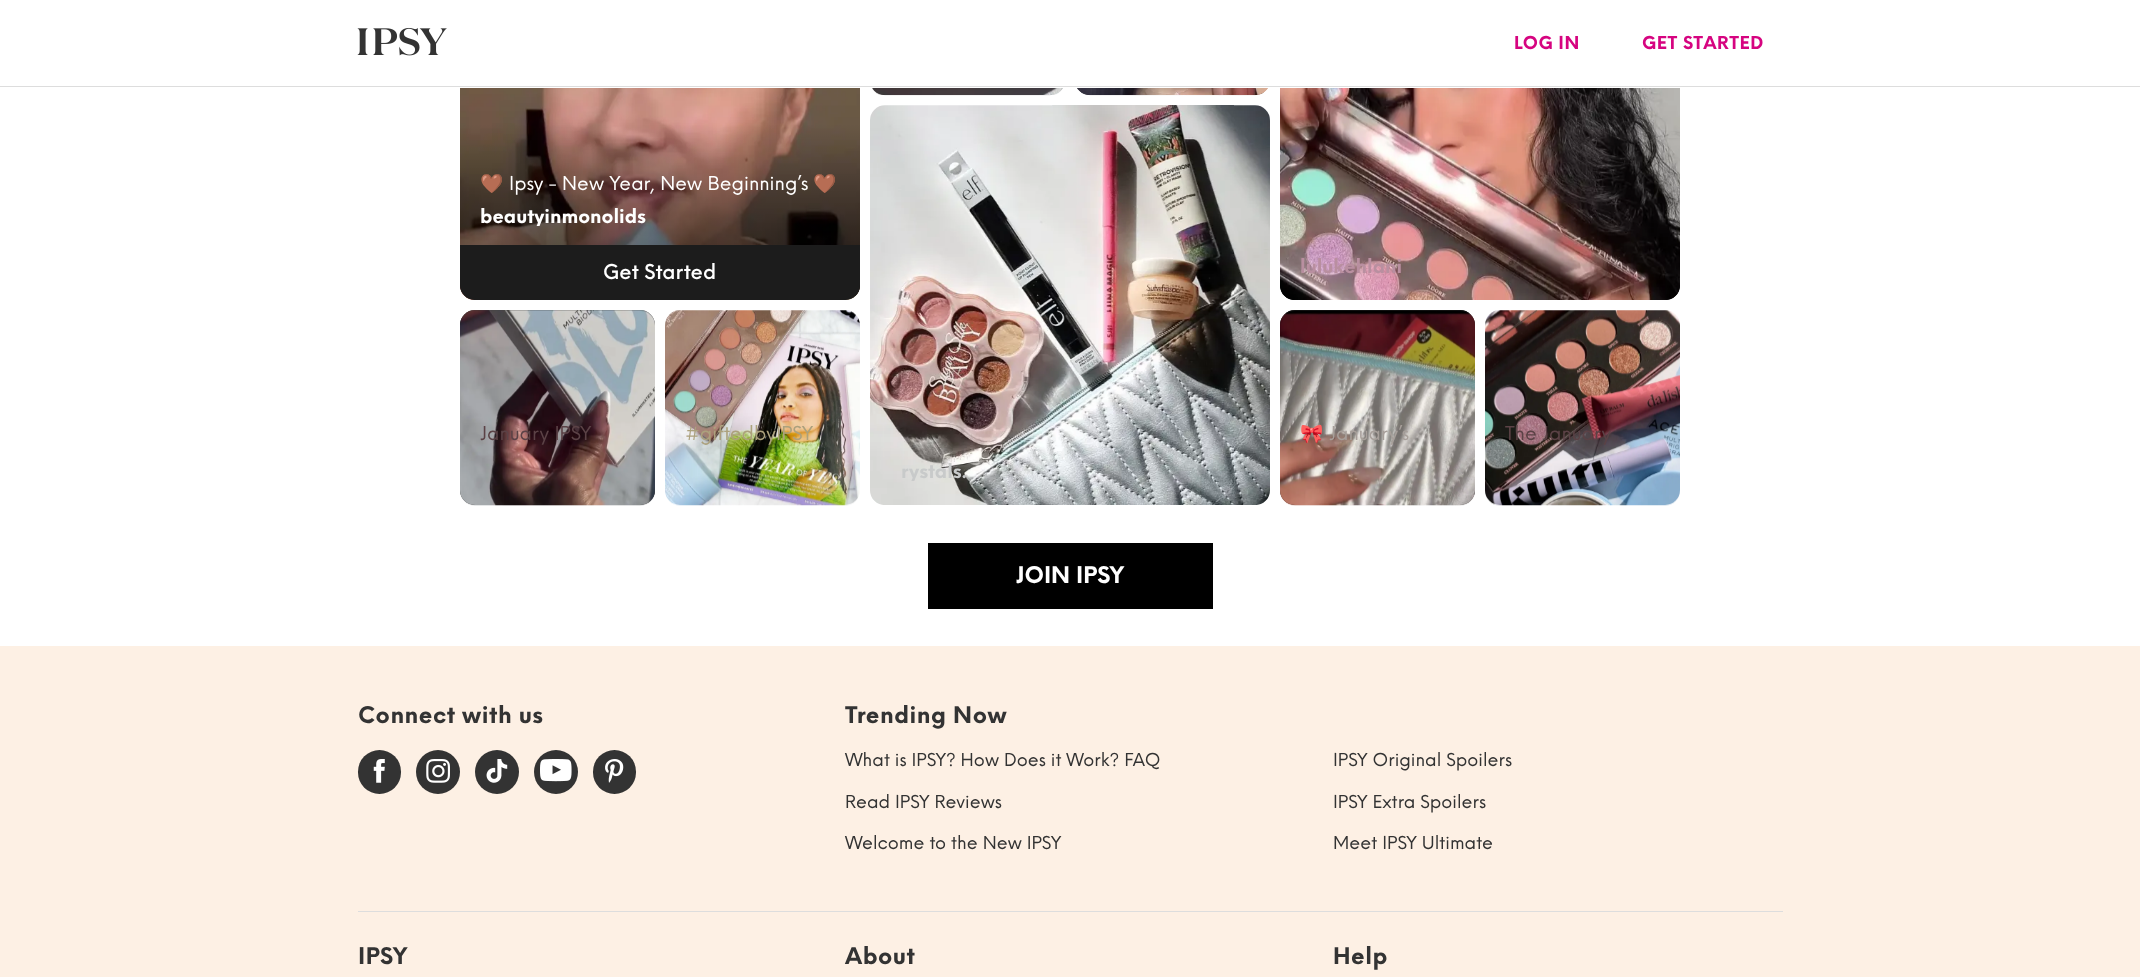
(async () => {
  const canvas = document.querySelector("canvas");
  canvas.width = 2140;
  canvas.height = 977;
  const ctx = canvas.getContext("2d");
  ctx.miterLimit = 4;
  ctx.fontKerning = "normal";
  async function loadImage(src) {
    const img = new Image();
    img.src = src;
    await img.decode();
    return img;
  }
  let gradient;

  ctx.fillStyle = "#ffffff";
  ctx.fillRect(0, 0, 2140, 977);
  ctx.drawImage(await loadImage("img/7.png"), 460, 286, 400, 14);
  ctx.drawImage(await loadImage("img/6.png"), 460, 88, 400, 212);
  gradient = ctx.createLinearGradient(660, -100, 660, 300);
  gradient.addColorStop(0, "rgba(0, 0, 0, 0)");
  gradient.addColorStop(0.56, "rgba(0, 0, 0, 0)");
  gradient.addColorStop(0.74, "rgba(0, 0, 0, 0.3)");
  gradient.addColorStop(1, "rgba(0, 0, 0, 0.65)");
  ctx.fillStyle = gradient;
  ctx.beginPath();
  ctx.roundRect(460, -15, 400, 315, 15);
  ctx.fill();
  ctx.fillStyle = "#dddddd";
  ctx.fillRect(0, 86, 2140, 1);
  ctx.drawImage(await loadImage("img/1.png"), 357, 27, 90, 29);
  ctx.drawImage(await loadImage("img/2.png"), 872, 88, 191, 8);
  ctx.drawImage(await loadImage("img/3.png"), 872, 88, 191, 7);
  ctx.drawImage(await loadImage("img/4.png"), 1077, 88, 191, 8);
  ctx.drawImage(await loadImage("img/5.png"), 1077, 88, 191, 7);
  ctx.fillStyle = "#1c1c1c";
  ctx.beginPath();
  ctx.roundRect(460, 245, 400, 55, [0, 0, 15, 15]);
  ctx.fill();
  ctx.drawImage(await loadImage("img/9.png"), 1280, 286, 400, 14);
  ctx.drawImage(await loadImage("img/8.png"), 1280, 88, 400, 212);
  ctx.drawImage(await loadImage("img/10.png"), 460, 310, 195, 196);
  ctx.fillStyle = "#404040";
  ctx.beginPath();
  ctx.roundRect(460, 310, 195, 195, 15);
  ctx.fill();
  ctx.drawImage(await loadImage("img/11.png"), 460, 310, 195, 196);
  ctx.drawImage(await loadImage("img/12.png"), 665, 310, 195, 196);
  ctx.drawImage(await loadImage("img/13.png"), 1280, 310, 195, 196);
  ctx.beginPath();
  ctx.roundRect(1280, 310, 195, 195, 15);
  ctx.fill();
  ctx.drawImage(await loadImage("img/14.png"), 1280, 310, 195, 196);
  ctx.drawImage(await loadImage("img/15.png"), 1485, 310, 195, 196);
  ctx.drawImage(await loadImage("img/16.png"), 870, 105, 400, 400);
  ctx.fillStyle = "#000000";
  ctx.fillRect(928, 543, 285, 66);
  ctx.fillStyle = "#fdf0e4";
  ctx.fillRect(0, 646, 2140, 331);
  ctx.fillStyle = "#333333";
  ctx.beginPath();
  ctx.roundRect(358, 750, 43, 44, 21.5);
  ctx.fill();
  ctx.drawImage(await loadImage("img/17.png"), 373, 759, 12, 24);
  ctx.beginPath();
  ctx.arc(438, 772, 22, 0, Math.PI * 2);
  ctx.fill();
  ctx.drawImage(await loadImage("img/18.png"), 426, 759, 24, 24);
  ctx.beginPath();
  ctx.arc(497, 772, 22, 0, Math.PI * 2);
  ctx.fill();
  ctx.drawImage(await loadImage("img/19.png"), 486, 759, 22, 24);
  ctx.beginPath();
  ctx.arc(556, 772, 22, 0, Math.PI * 2);
  ctx.fill();
  ctx.drawImage(await loadImage("img/20.png"), 540, 759, 32, 23);
  ctx.beginPath();
  ctx.roundRect(593, 750, 43, 44, 21.5);
  ctx.fill();
  ctx.drawImage(await loadImage("img/21.png"), 605, 759, 19, 24);
  ctx.fillStyle = "#dddddd";
  ctx.fillRect(358, 911, 1425, 1);
  ctx.letterSpacing = "0.5px";
  ctx.font = "bold 17.5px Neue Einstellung";
  ctx.fillStyle = "#d60480";
  ctx.fillText("LOG IN", 1514, 49);
  ctx.fillText("GET STARTED", 1642, 49);
  ctx.letterSpacing = "0px";
  ctx.font = "18.75px Noto Color Emoji";
  ctx.fillStyle = "#ffffff";
  ctx.fillText("🤎", 480, 190);
  ctx.font = "18.75px Neue Einstellung";
  ctx.fillText("Ipsy - New Year, New Beginning’s", 509, 190);
  ctx.font = "18.75px Noto Color Emoji";
  ctx.fillText("🤎", 813, 190);
  ctx.save();
  ctx.beginPath();
  ctx.rect(480, 208, 360, 18);
  ctx.clip();
  ctx.font = "bold 18.75px Neue Einstellung";
  ctx.fillText("beautyinmonolids", 480, 223);
  ctx.restore();
  ctx.font = "500 20px Neue Einstellung";
  ctx.fillText("Get Started", 603, 279);
  ctx.font = "bold 18.75px Neue Einstellung";
  ctx.fillStyle = "#b98fa0";
  ctx.fillText("lulukehlani", 1300, 273);
  ctx.font = "18.75px Neue Einstellung";
  ctx.fillStyle = "#5b4246";
  ctx.fillText("January IPSY", 480, 440);
  ctx.fillStyle = "#aca17d";
  ctx.fillText("#giftedbyIPSY", 685, 440);
  ctx.font = "18.75px Noto Color Emoji";
  ctx.fillStyle = "#9c8a84";
  ctx.fillText("🎀", 1300, 440);
  ctx.font = "18.75px Neue Einstellung";
  ctx.fillStyle = "#a79f9a";
  ctx.fillText("January’s", 1329, 440);
  ctx.fillStyle = "#5b4246";
  ctx.fillText("The January", 1505, 440);
  ctx.save();
  ctx.beginPath();
  ctx.rect(890, 463, 360, 18);
  ctx.clip();
  ctx.font = "bold 18.75px Neue Einstellung";
  ctx.fillStyle = "#c8caca";
  ctx.fillText("rystals.", 901, 478);
  ctx.restore();
  ctx.font = "bold 22.5px Neue Einstellung";
  ctx.fillStyle = "#ffffff";
  ctx.fillText("JOIN IPSY", 1016, 583);
  ctx.letterSpacing = "0.5px";
  ctx.fillStyle = "#333333";
  ctx.fillText("Connect with us", 358, 723);
  ctx.fillText("Trending Now", 845, 723);
  ctx.letterSpacing = "0px";
  ctx.font = "17.5px Neue Einstellung";
  for (const [text, x, y] of [
    ["What is IPSY? How Does it Work? FAQ", 845, 766],
    ["Read IPSY Reviews", 845, 808],
    ["Welcome to the New IPSY", 845, 849],
    ["IPSY Original Spoilers", 1333, 766],
    ["IPSY Extra Spoilers", 1333, 808],
    ["Meet IPSY Ultimate", 1333, 849],
  ]) {
    ctx.fillText(text, x, y);
  }
  ctx.letterSpacing = "0.5px";
  ctx.font = "bold 22.5px Neue Einstellung";
  for (const [text, x, y] of [
    ["IPSY", 358, 964],
    ["About", 845, 964],
    ["Help", 1333, 964],
  ]) {
    ctx.fillText(text, x, y);
  }
})();
